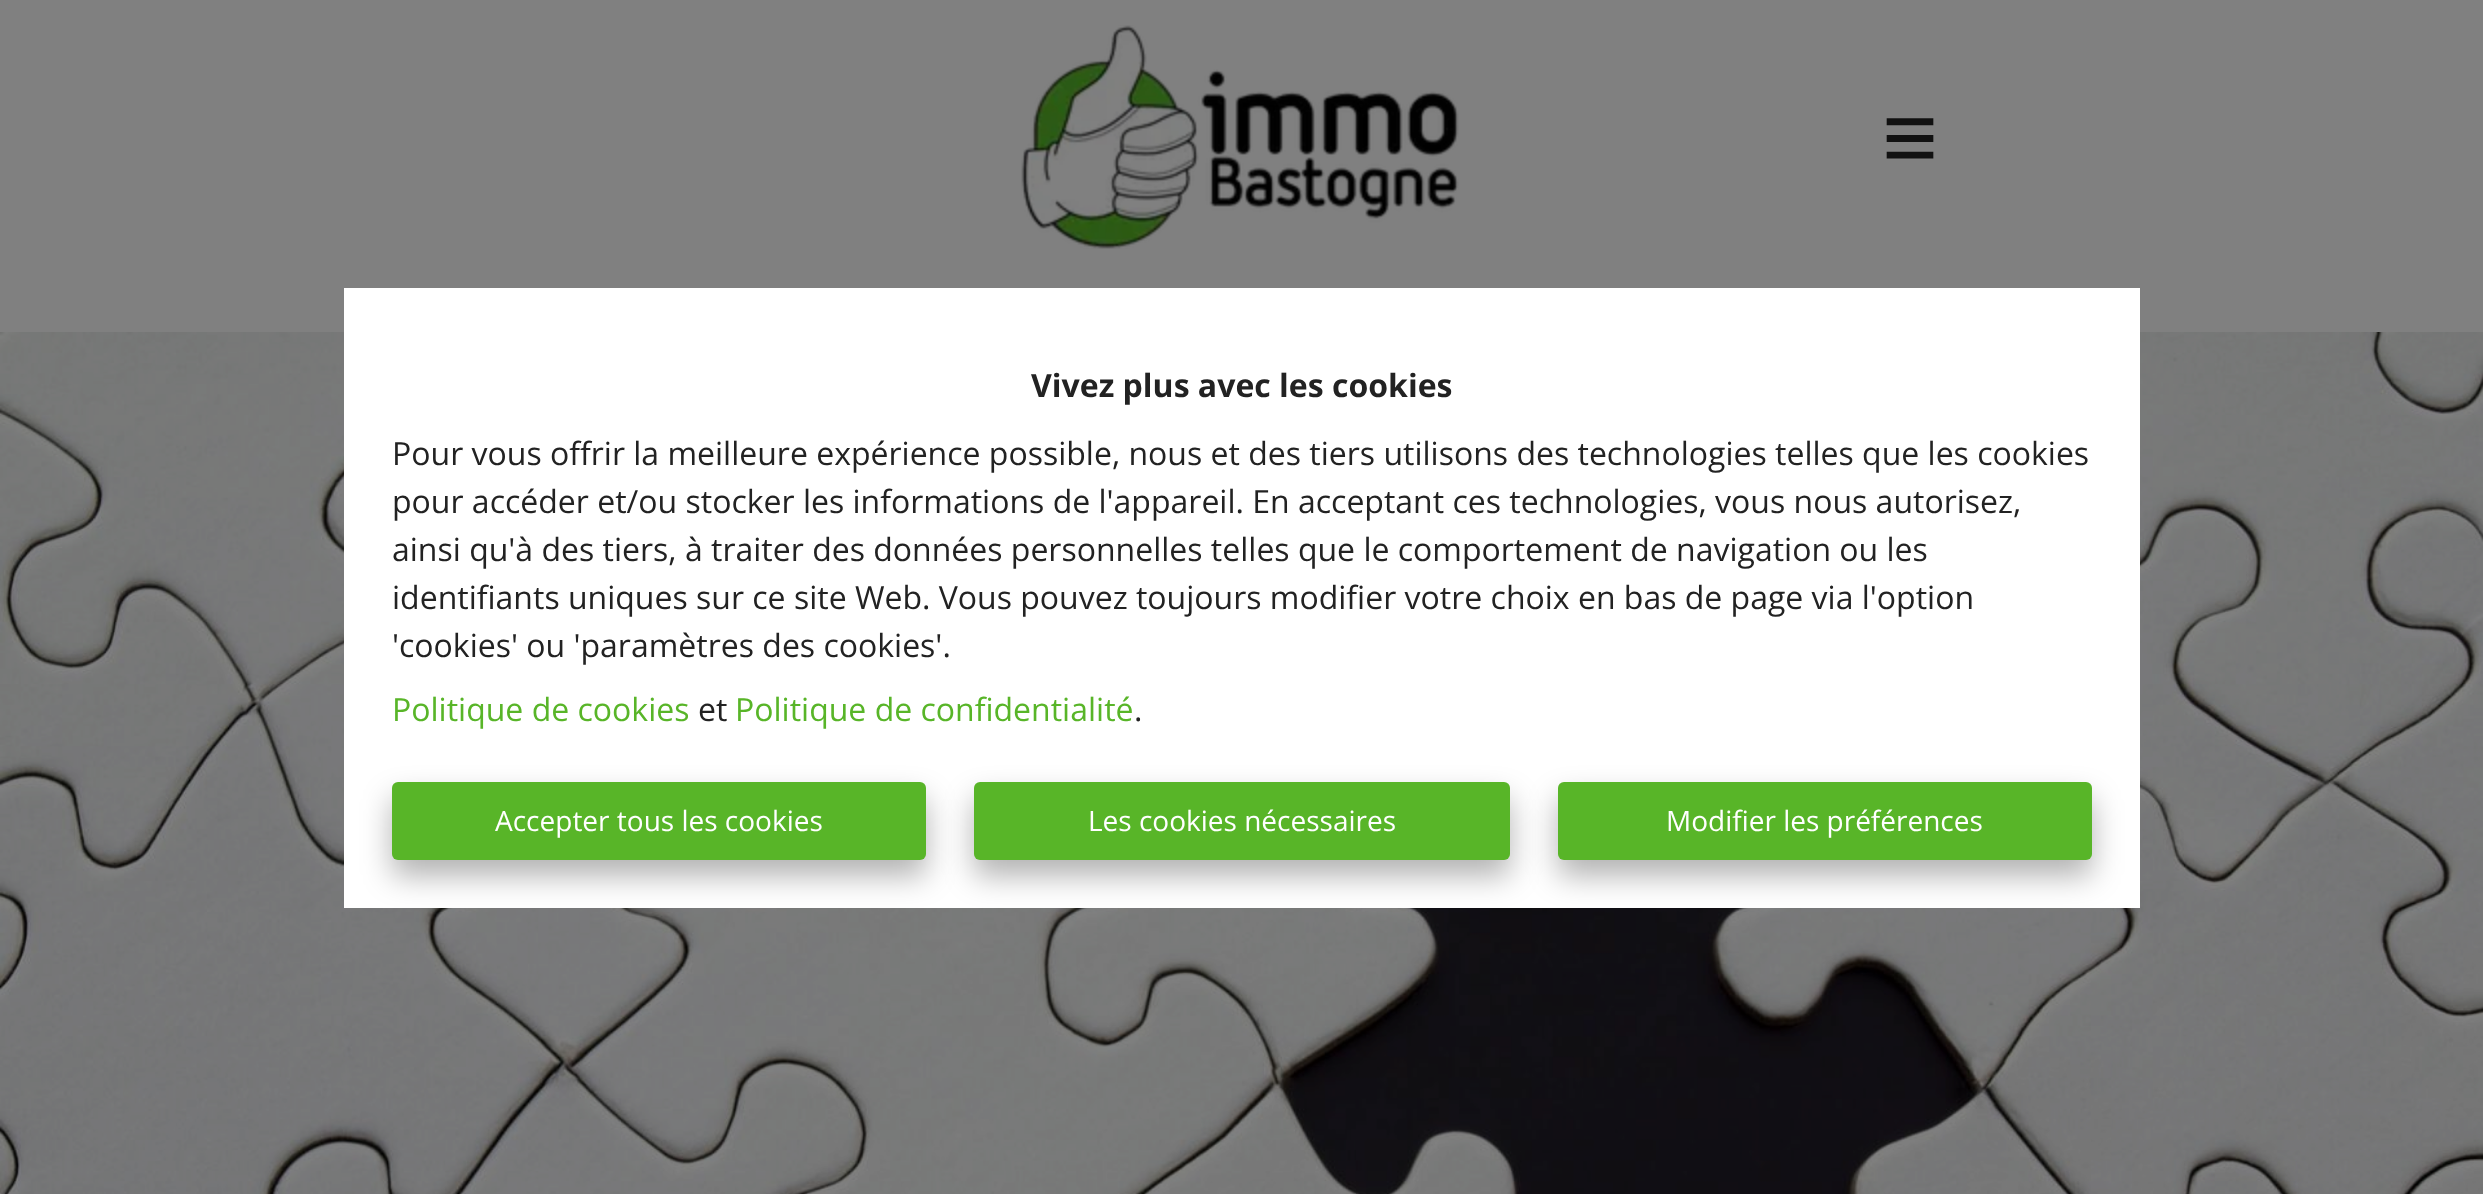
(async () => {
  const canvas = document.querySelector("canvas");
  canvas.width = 2483;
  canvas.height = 1194;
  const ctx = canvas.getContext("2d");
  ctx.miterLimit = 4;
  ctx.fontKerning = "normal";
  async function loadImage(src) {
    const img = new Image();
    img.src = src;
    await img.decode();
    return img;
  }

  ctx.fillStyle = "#808080";
  ctx.fillRect(0, 0, 2483, 1194);
  ctx.drawImage(await loadImage("img/1.png"), 1021, 25, 438, 224);
  ctx.drawImage(await loadImage("img/2.png"), 0, 332, 2483, 862);
  ctx.fillStyle = "#ffffff";
  ctx.fillRect(344, 288, 1796, 620);
  ctx.fillStyle = "rgba(0, 0, 0, 0.3)";
  ctx.filter = "blur(15px)";
  ctx.beginPath();
  ctx.roundRect(392, 798, 534, 78, 6);
  ctx.fill();
  ctx.filter = "none";
  ctx.fillStyle = "#58b528";
  ctx.beginPath();
  ctx.roundRect(392, 782, 534, 78, 6);
  ctx.fill();
  ctx.fillStyle = "rgba(0, 0, 0, 0.3)";
  ctx.filter = "blur(15px)";
  ctx.beginPath();
  ctx.roundRect(974, 798, 536, 78, 6);
  ctx.fill();
  ctx.filter = "none";
  ctx.fillStyle = "#58b528";
  ctx.beginPath();
  ctx.roundRect(974, 782, 536, 78, 6);
  ctx.fill();
  ctx.fillStyle = "rgba(0, 0, 0, 0.3)";
  ctx.filter = "blur(15px)";
  ctx.beginPath();
  ctx.roundRect(1558, 798, 534, 78, 6);
  ctx.fill();
  ctx.filter = "none";
  ctx.fillStyle = "#58b528";
  ctx.beginPath();
  ctx.roundRect(1558, 782, 534, 78, 6);
  ctx.fill();
  ctx.font = "96px Liberation Sans";
  ctx.fillStyle = "#111111";
  ctx.fillText("≡", 1882, 170);
  ctx.font = "bold 32px Open Sans";
  ctx.fillStyle = "#222222";
  ctx.fillText("Vivez plus avec les cookies", 1031, 397);
  ctx.font = "32px Open Sans";
  for (const [text, x, y] of [
    ["Pour vous offrir la meilleure expérience possible, nous et des tiers utilisons des technologies telles que les cookies", 392, 465],
    ["pour accéder et/ou stocker les informations de l'appareil. En acceptant ces technologies, vous nous autorisez,", 392, 513],
    ["ainsi qu'à des tiers, à traiter des données personnelles telles que le comportement de navigation ou les", 392, 561],
    ["identifiants uniques sur ce site Web. Vous pouvez toujours modifier votre choix en bas de page via l'option", 392, 609],
    ["'cookies' ou 'paramètres des cookies'.", 392, 657],
  ]) {
    ctx.fillText(text, x, y);
  }
  ctx.fillStyle = "#58b528";
  ctx.fillText("Politique de cookies", 392, 721);
  ctx.fillStyle = "#222222";
  ctx.fillText("et", 698, 721);
  ctx.fillStyle = "#58b528";
  ctx.fillText("Politique de confidentialité", 735, 721);
  ctx.fillStyle = "#222222";
  ctx.fillText(".", 1134, 721);
  ctx.font = "28px Open Sans";
  ctx.fillStyle = "#ffffff";
  for (const [text, x, y] of [
    ["Accepter tous les cookies", 495, 831],
    ["Les cookies nécessaires", 1088, 831],
    ["Modifier les préférences", 1666, 831],
  ]) {
    ctx.fillText(text, x, y);
  }
})();
